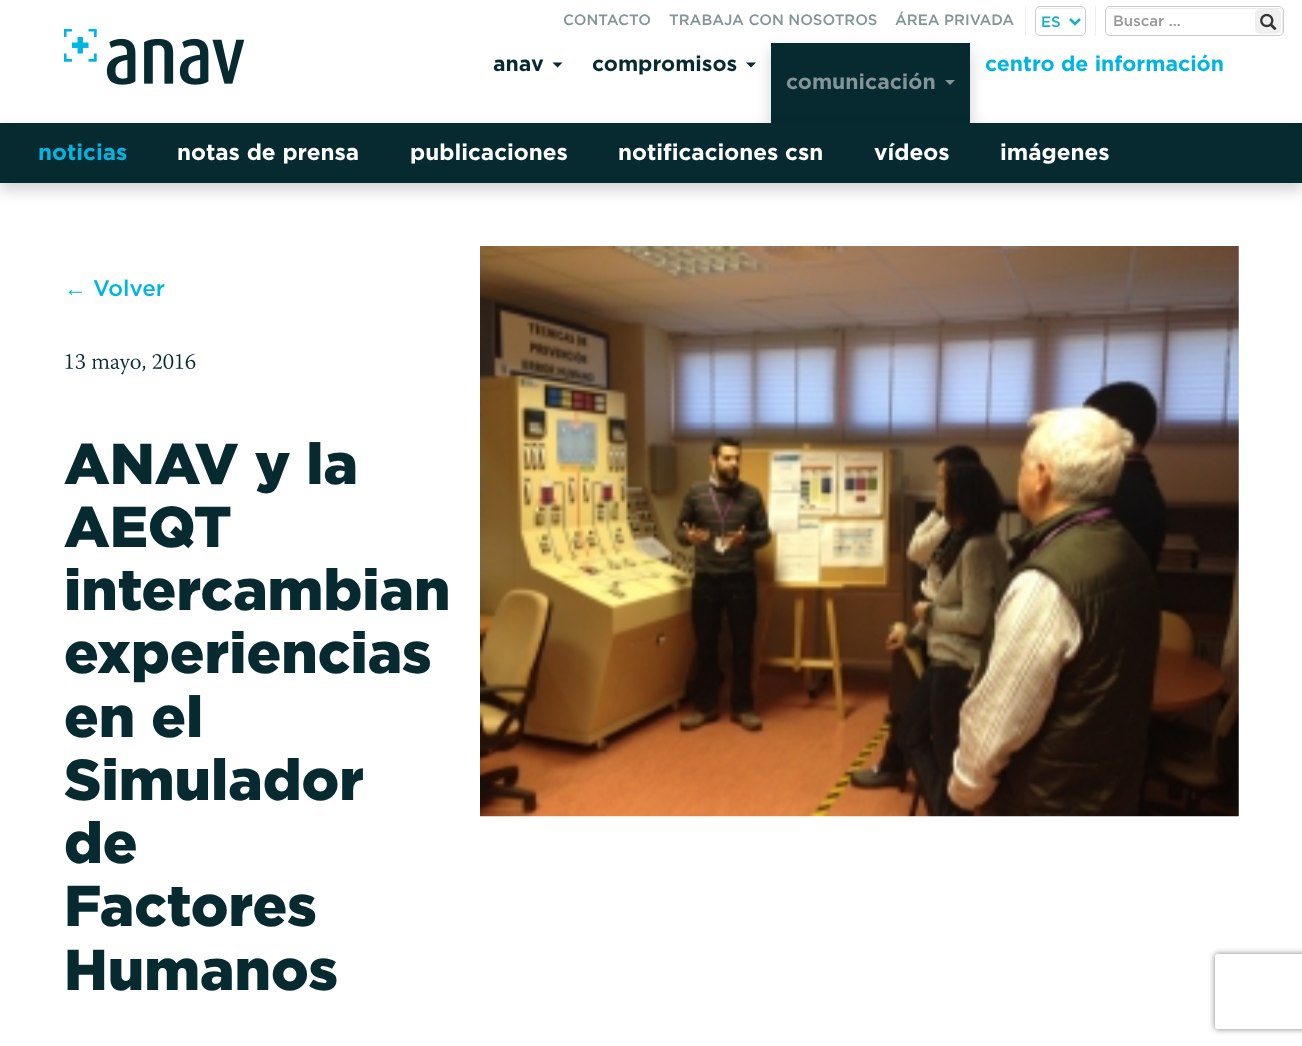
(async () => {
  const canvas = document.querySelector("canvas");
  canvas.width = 1302;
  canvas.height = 1046;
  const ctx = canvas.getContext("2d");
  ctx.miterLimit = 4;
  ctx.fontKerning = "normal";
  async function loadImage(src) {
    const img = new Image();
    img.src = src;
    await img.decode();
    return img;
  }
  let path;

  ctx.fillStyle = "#ffffff";
  ctx.fillRect(0, 0, 1302, 1046);
  ctx.fillStyle = "#f0eff0";
  ctx.fillRect(1025, 6, 1, 30);
  ctx.fillStyle = "#ececec";
  path = new Path2D("M1040 9H1081C1083 9 1085 10 1085 12C1085 10 1083 8 1081 8H1040C1038 8 1036 10 1036 12C1036 10 1038 9 1040 9Z");
  ctx.fill(path);
  ctx.beginPath();
  ctx.roundRect(1035.5, 6.5, 50, 29, 4.5);
  ctx.strokeStyle = "#cccccc";
  ctx.stroke();
  path = new Path2D("M1070 19L1075 24L1080 19");
  ctx.strokeStyle = "#19afc8";
  ctx.lineWidth = 2.5;
  ctx.stroke(path);
  ctx.fillStyle = "#f0eff0";
  ctx.fillRect(1095, 6, 1, 30);
  ctx.fillStyle = "#ececec";
  path = new Path2D("M1110 9H1279C1284 9 1282 16 1282 19V34C1283 33 1283 32 1283 31V12C1283 10 1281 8 1279 8H1110C1108 8 1106 10 1106 12C1106 10 1108 9 1110 9Z");
  ctx.fill(path);
  ctx.beginPath();
  ctx.roundRect(1105.5, 6.5, 178, 29, 4.5);
  ctx.strokeStyle = "#cccccc";
  ctx.lineWidth = 1;
  ctx.stroke();
  ctx.fillStyle = "#f0eff0";
  ctx.beginPath();
  ctx.roundRect(1255, 9, 26, 25, 5);
  ctx.fill();
  ctx.drawImage(await loadImage("img/1.png"), 1260, 13, 17, 18);
  ctx.drawImage(await loadImage("img/2.png"), 64, 29, 181, 56);
  ctx.fillStyle = "#062a30";
  path = new Path2D("M552.5 62.5H562.5L557.5 67.5Z");
  ctx.fill(path);
  path = new Path2D("M746 62.5H756L751 67.5Z");
  ctx.fill(path);
  ctx.fillStyle = "rgba(0, 0, 0, 0.18)";
  ctx.filter = "blur(7.5px)";
  ctx.beginPath();
  ctx.rect(771, 50, 199, 80);
  ctx.fill();
  ctx.filter = "none";
  ctx.fillStyle = "#062a30";
  ctx.fillRect(771, 43, 199, 80);
  ctx.fillStyle = "#839598";
  path = new Path2D("M945 80H955L950 85Z");
  ctx.fill(path);
  ctx.fillStyle = "rgba(0, 0, 0, 0.18)";
  ctx.filter = "blur(7.5px)";
  ctx.beginPath();
  ctx.rect(0, 130, 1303, 60);
  ctx.fill();
  ctx.filter = "none";
  ctx.fillStyle = "#062a30";
  ctx.fillRect(0, 123, 1302, 60);
  ctx.drawImage(await loadImage("img/3.png"), 65, 353, 131, 22);
  ctx.drawImage(await loadImage("img/4.png"), 480, 246, 759, 571);
  ctx.save();
  path = new Path2D("M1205 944H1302V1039H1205ZM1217.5 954H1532.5C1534 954 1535 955 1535 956.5V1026.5C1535 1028 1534 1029 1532.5 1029H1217.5C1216 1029 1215 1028 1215 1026.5V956.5C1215 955 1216 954 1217.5 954Z");
  ctx.clip(path, "evenodd");
  ctx.fillStyle = "#808080";
  ctx.filter = "blur(3px)";
  ctx.beginPath();
  ctx.roundRect(1215, 954, 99, 75, 2.5);
  ctx.fill();
  ctx.filter = "none";
  ctx.restore();
  ctx.font = "500 15px Gotham";
  ctx.fillStyle = "#839598";
  for (const [text, x, y] of [
    ["CONTACTO", 563, 25],
    ["TRABAJA CON NOSOTROS", 669, 25],
    ["ÁREA PRIVADA", 895, 25],
  ]) {
    ctx.fillText(text, x, y);
  }
  ctx.fillStyle = "#19afc8";
  ctx.fillText("ES", 1041, 27);
  ctx.fillStyle = "#999999";
  ctx.fillText("Buscar …", 1113, 26);
  ctx.font = "bold 21.25px Gotham";
  ctx.fillStyle = "#062a30";
  ctx.fillText("anav", 493, 71);
  ctx.fillText("compromisos", 592, 71);
  ctx.fillStyle = "#00b5e2";
  ctx.fillText("centro de información", 985, 71);
  ctx.fillStyle = "#839598";
  ctx.fillText("comunicación", 786, 89);
  ctx.font = "bold 22.5px Gotham";
  ctx.fillStyle = "#00b5e2";
  ctx.fillText("noticias", 38, 160);
  ctx.fillStyle = "#ffffff";
  for (const [text, x, y] of [
    ["notas de prensa", 177, 160],
    ["publicaciones", 410, 160],
    ["notificaciones csn", 618, 160],
    ["vídeos", 874, 160],
    ["imágenes", 1000, 160],
  ]) {
    ctx.fillText(text, x, y);
  }
  ctx.font = "22.5px Liberation Sans";
  ctx.fillStyle = "#00b5e2";
  ctx.fillText("←", 64, 296);
  ctx.font = "500 22.5px Gotham";
  ctx.fillText("Volver", 93, 296);
  ctx.font = "900 57.5px Gotham";
  ctx.fillStyle = "#062a30";
  for (const [text, x, y] of [
    ["ANAV y la", 64, 484],
    ["AEQT", 64, 547],
    ["intercambian", 64, 610],
    ["experiencias", 64, 673],
    ["en el", 64, 737],
    ["Simulador", 64, 800],
    ["de", 64, 863],
    ["Factores", 64, 926],
    ["Humanos", 64, 990],
  ]) {
    ctx.fillText(text, x, y);
  }
})();
